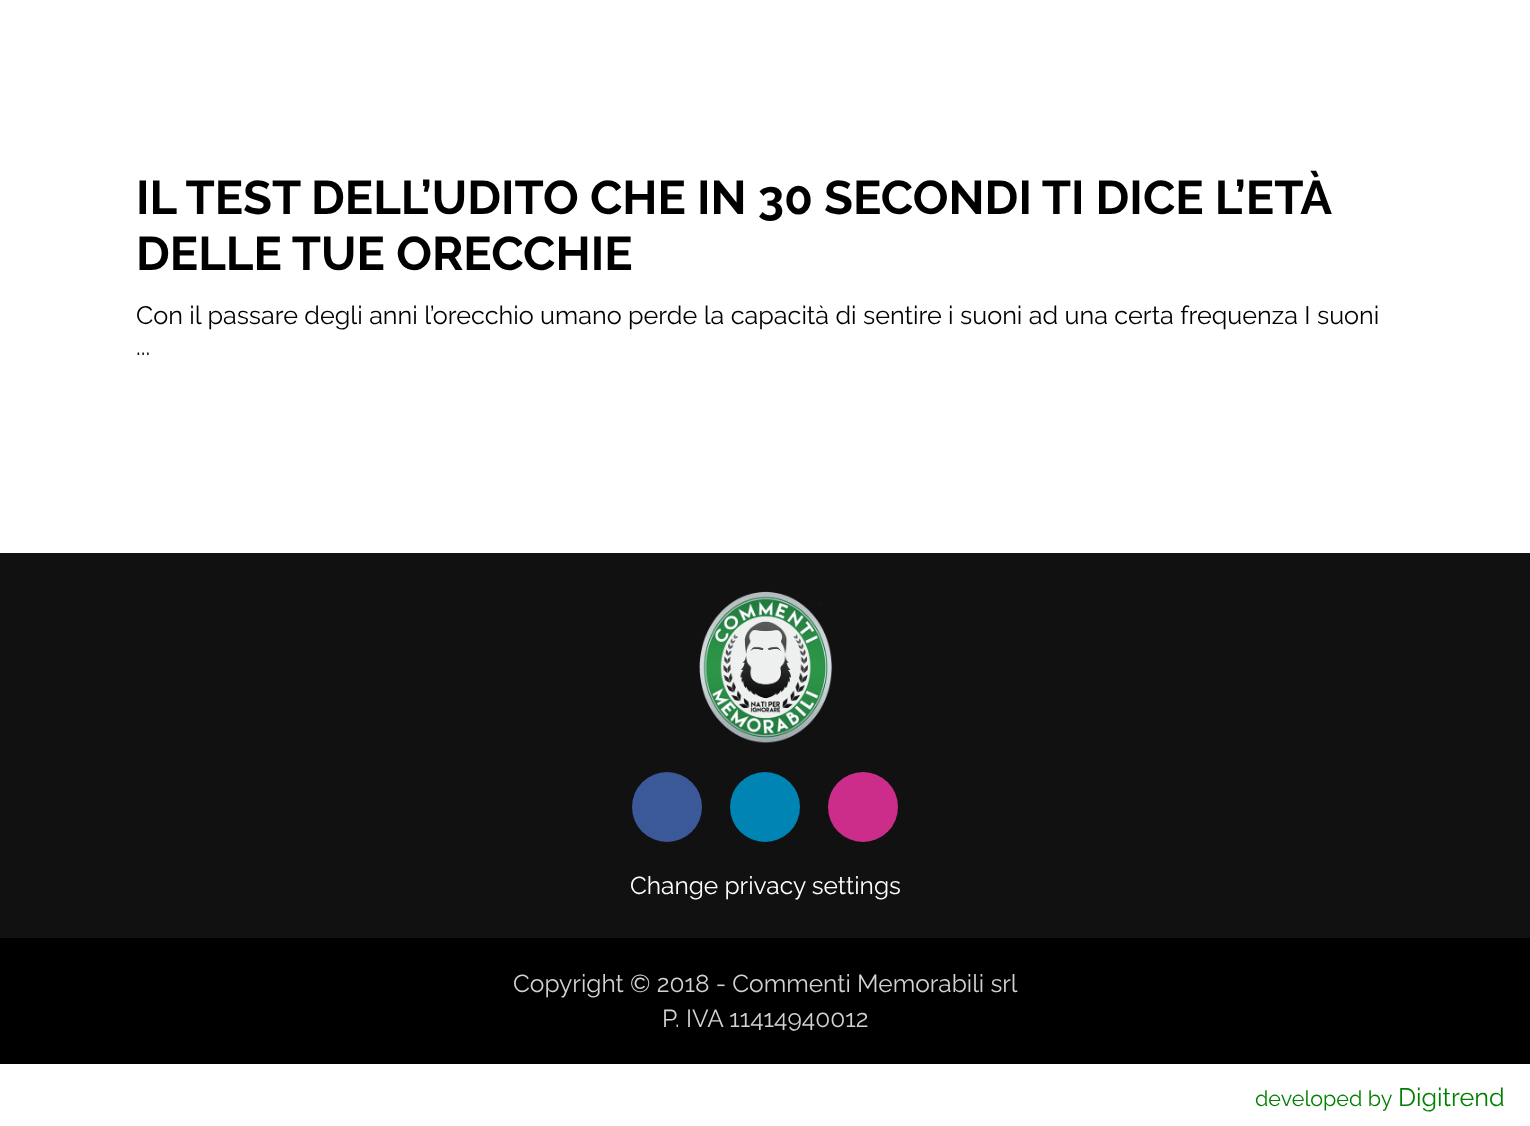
(async () => {
  const canvas = document.querySelector("canvas");
  canvas.width = 1530;
  canvas.height = 1126;
  const ctx = canvas.getContext("2d");
  ctx.miterLimit = 4;
  ctx.fontKerning = "normal";
  async function loadImage(src) {
    const img = new Image();
    img.src = src;
    await img.decode();
    return img;
  }

  ctx.fillStyle = "#ffffff";
  ctx.fillRect(0, 0, 1530, 1126);
  ctx.fillStyle = "#111111";
  ctx.fillRect(0, 553, 1530, 385);
  ctx.drawImage(await loadImage("img/1.png"), 699, 591, 134, 152);
  ctx.fillStyle = "#3b5998";
  ctx.beginPath();
  ctx.arc(667, 807, 35, 0, Math.PI * 2);
  ctx.fill();
  ctx.fillStyle = "#0084b4";
  ctx.beginPath();
  ctx.arc(765, 807, 35, 0, Math.PI * 2);
  ctx.fill();
  ctx.fillStyle = "#cd2d8a";
  ctx.beginPath();
  ctx.arc(863, 807, 35, 0, Math.PI * 2);
  ctx.fill();
  ctx.fillStyle = "#000000";
  ctx.fillRect(0, 938, 1530, 126);
  ctx.wordSpacing = "-0.25px";
  ctx.font = "bold 47.25px Raleway";
  ctx.fillText("IL TEST DELL’UDITO CHE IN 30 SECONDI TI DICE L’ETÀ", 136, 214);
  ctx.wordSpacing = "0px";
  ctx.fillText("DELLE TUE ORECCHIE", 136, 270);
  ctx.font = "25.2px Raleway";
  ctx.fillText("Con il passare degli anni l’orecchio umano perde la capacità di sentire i suoni ad una certa frequenza I suoni", 136, 324);
  ctx.fillText("...", 136, 355);
  ctx.font = "24.5px Raleway";
  ctx.fillStyle = "#ffffff";
  ctx.fillText("Change privacy settings", 630, 894);
  ctx.fillStyle = "#d2d2d2";
  ctx.fillText("Copyright © 2018 - Commenti Memorabili srl", 513, 992);
  ctx.fillText("P. IVA 11414940012", 662, 1027);
  ctx.font = "21.5px Raleway";
  ctx.fillStyle = "#008000";
  ctx.fillText("developed by", 1255, 1106);
  ctx.font = "25.2px Raleway";
  ctx.fillText("Digitrend", 1398, 1106);
})();
